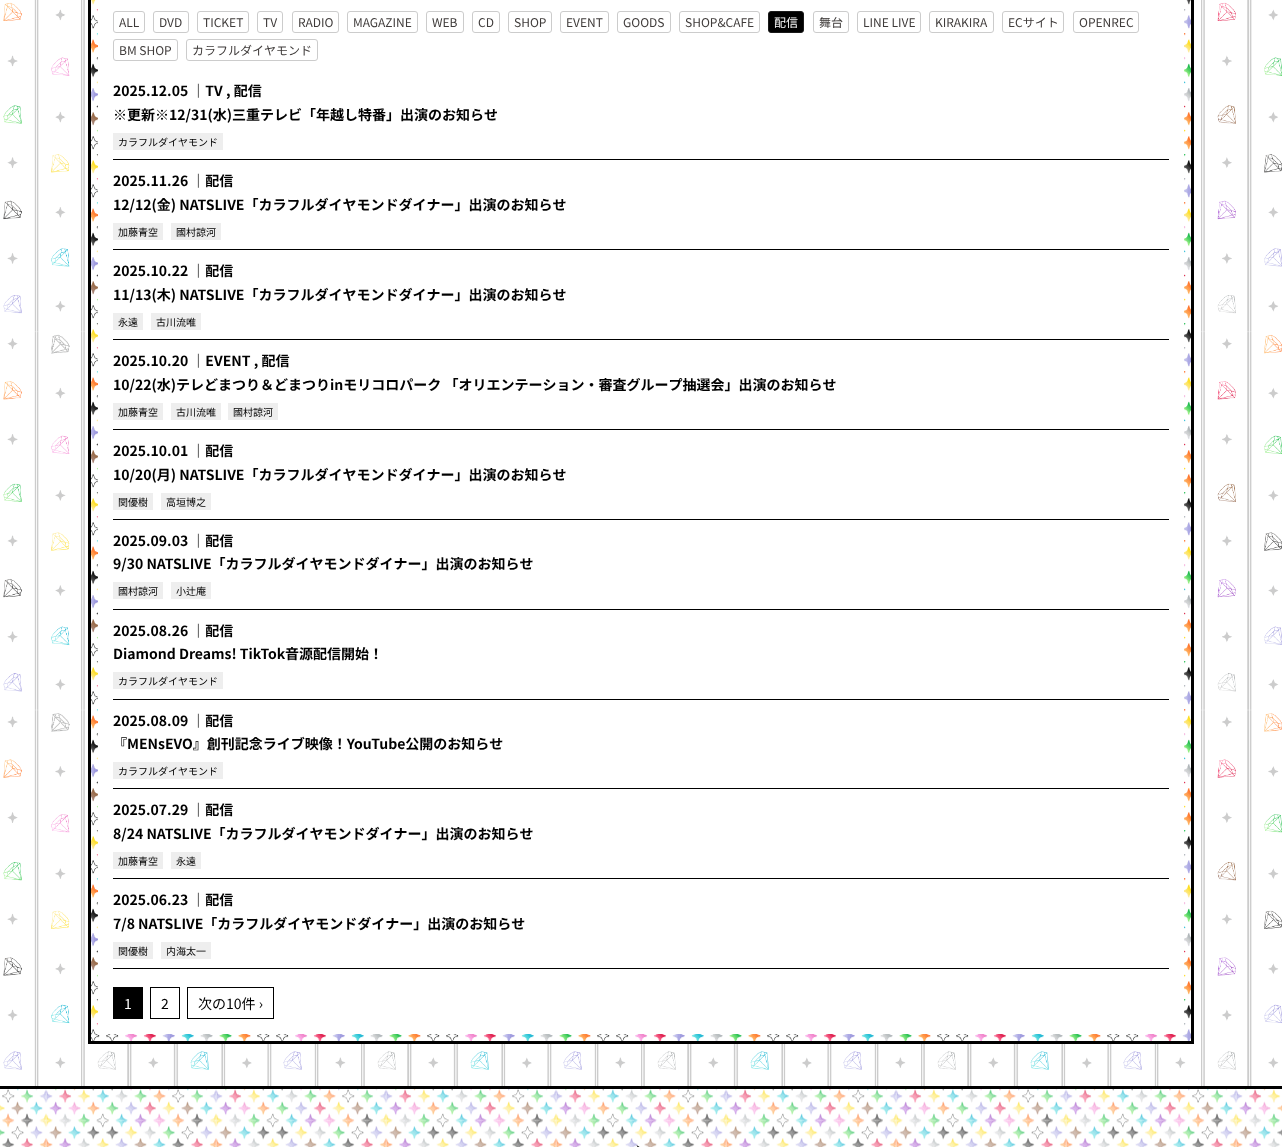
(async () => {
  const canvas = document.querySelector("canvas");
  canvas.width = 1282;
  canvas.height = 1147;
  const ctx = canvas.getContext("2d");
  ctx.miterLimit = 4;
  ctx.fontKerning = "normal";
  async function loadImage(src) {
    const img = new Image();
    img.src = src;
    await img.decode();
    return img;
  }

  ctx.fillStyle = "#ffffff";
  ctx.fillRect(0, 0, 1282, 1147);
  ctx.drawImage(await loadImage("img/1.png"), 3, 0, 1279, 1086);
  ctx.fillRect(97, 0, 1093, 1041);
  ctx.drawImage(await loadImage("img/2.png"), 91, 0, 1100, 1041);
  ctx.strokeStyle = "#000000";
  ctx.lineWidth = 3;
  ctx.strokeRect(89.5, -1.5, 1103, 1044);
  ctx.fillRect(98, 0, 1086, 1034);
  ctx.beginPath();
  ctx.roundRect(113.5, 11.5, 31, 21, 2.5);
  ctx.strokeStyle = "#cccccc";
  ctx.lineWidth = 1;
  ctx.stroke();
  ctx.beginPath();
  ctx.roundRect(153.5, 11.5, 35, 21, 2.5);
  ctx.stroke();
  ctx.beginPath();
  ctx.roundRect(197.5, 11.5, 51, 21, 2.5);
  ctx.stroke();
  ctx.beginPath();
  ctx.roundRect(257.5, 11.5, 25, 21, 2.5);
  ctx.stroke();
  ctx.beginPath();
  ctx.roundRect(292.5, 11.5, 46, 21, 2.5);
  ctx.stroke();
  ctx.beginPath();
  ctx.roundRect(347.5, 11.5, 70, 21, 2.5);
  ctx.stroke();
  ctx.beginPath();
  ctx.roundRect(426.5, 11.5, 37, 21, 2.5);
  ctx.stroke();
  ctx.beginPath();
  ctx.roundRect(472.5, 11.5, 27, 21, 2.5);
  ctx.stroke();
  ctx.beginPath();
  ctx.roundRect(508.5, 11.5, 43, 21, 2.5);
  ctx.stroke();
  ctx.beginPath();
  ctx.roundRect(560.5, 11.5, 48, 21, 2.5);
  ctx.stroke();
  ctx.beginPath();
  ctx.roundRect(617.5, 11.5, 53, 21, 2.5);
  ctx.stroke();
  ctx.beginPath();
  ctx.roundRect(679.5, 11.5, 80, 21, 2.5);
  ctx.stroke();
  ctx.fillStyle = "#000000";
  ctx.beginPath();
  ctx.roundRect(768.5, 11.5, 35, 21, 2.5);
  ctx.fill();
  ctx.strokeStyle = "#1a1a1a";
  ctx.stroke();
  ctx.beginPath();
  ctx.roundRect(813.5, 11.5, 35, 21, 2.5);
  ctx.strokeStyle = "#cccccc";
  ctx.stroke();
  ctx.beginPath();
  ctx.roundRect(857.5, 11.5, 63, 21, 2.5);
  ctx.stroke();
  ctx.beginPath();
  ctx.roundRect(929.5, 11.5, 64, 21, 2.5);
  ctx.stroke();
  ctx.beginPath();
  ctx.roundRect(1002.5, 11.5, 61, 21, 2.5);
  ctx.stroke();
  ctx.beginPath();
  ctx.roundRect(1073.5, 11.5, 65, 21, 2.5);
  ctx.stroke();
  ctx.beginPath();
  ctx.roundRect(113.5, 39.5, 64, 21, 2.5);
  ctx.stroke();
  ctx.beginPath();
  ctx.roundRect(186.5, 39.5, 131, 21, 2.5);
  ctx.stroke();
  for (const [x, y, w, h, color] of [
    [113, 159, 1056, 1, "#000000"],
    [113, 133, 110, 17, "#eeeeee"],
    [113, 249, 1056, 1, "#000000"],
    [113, 223, 50, 17, "#eeeeee"],
    [171, 223, 50, 17, "#eeeeee"],
    [113, 339, 1056, 1, "#000000"],
    [113, 313, 30, 17, "#eeeeee"],
    [151, 313, 50, 17, "#eeeeee"],
    [113, 429, 1056, 1, "#000000"],
    [113, 403, 50, 17, "#eeeeee"],
    [171, 403, 50, 17, "#eeeeee"],
    [228, 403, 50, 17, "#eeeeee"],
    [113, 519, 1056, 1, "#000000"],
    [113, 493, 40, 17, "#eeeeee"],
    [161, 493, 50, 17, "#eeeeee"],
    [113, 609, 1056, 1, "#000000"],
    [113, 582, 50, 17, "#eeeeee"],
    [171, 582, 40, 17, "#eeeeee"],
    [113, 699, 1056, 1, "#000000"],
    [113, 672, 110, 17, "#eeeeee"],
    [113, 788, 1056, 1, "#000000"],
    [113, 762, 110, 17, "#eeeeee"],
    [113, 878, 1056, 1, "#000000"],
    [113, 852, 50, 17, "#eeeeee"],
    [171, 852, 30, 17, "#eeeeee"],
    [113, 968, 1056, 1, "#000000"],
    [113, 942, 40, 17, "#eeeeee"],
    [161, 942, 50, 17, "#eeeeee"],
    [113, 987, 30, 32, "#000000"],
  ]) {
    ctx.fillStyle = color;
    ctx.fillRect(x, y, w, h);
  }
  ctx.strokeStyle = "#000000";
  ctx.strokeRect(150.5, 987.5, 29, 31);
  ctx.strokeRect(187.5, 987.5, 86, 31);
  ctx.drawImage(await loadImage("img/3.png"), 0, 1089, 1282, 58);
  ctx.fillRect(0, 1086, 1282, 3);
  ctx.drawImage(await loadImage("img/4.png"), 636, 1145, 4, 2);
  ctx.font = "12px Noto Sans JP";
  ctx.fillStyle = "#3f3b3a";
  for (const [text, x, y] of [
    ["ALL", 119, 27],
    ["DVD", 159, 27],
    ["TICKET", 203, 27],
    ["TV", 263, 27],
    ["RADIO", 298, 27],
    ["MAGAZINE", 353, 27],
    ["WEB", 432, 27],
    ["CD", 478, 27],
    ["SHOP", 514, 27],
    ["EVENT", 566, 27],
    ["GOODS", 623, 27],
    ["SHOP&CAFE", 685, 27],
  ]) {
    ctx.fillText(text, x, y);
  }
  ctx.fillStyle = "#ffffff";
  ctx.fillText("配信", 774, 27);
  ctx.fillStyle = "#3f3b3a";
  for (const [text, x, y] of [
    ["舞台", 819, 27],
    ["LINE LIVE", 863, 27],
    ["KIRAKIRA", 935, 27],
    ["ECサイト", 1008, 27],
    ["OPENREC", 1079, 27],
    ["BM SHOP", 119, 55],
    ["カラフルダイヤモンド", 192, 55],
  ]) {
    ctx.fillText(text, x, y);
  }
  ctx.font = "bold 14px Noto Sans JP";
  ctx.fillStyle = "#000000";
  ctx.fillText("2025.12.05 ｜TV , 配信", 113, 96);
  ctx.fillText("※更新※12/31(水)三重テレビ「年越し特番」出演のお知らせ", 113, 120);
  ctx.font = "10px Noto Sans JP";
  ctx.fillText("カラフルダイヤモンド", 118, 146);
  ctx.font = "bold 14px Noto Sans JP";
  ctx.fillText("2025.11.26 ｜配信", 113, 186);
  ctx.fillText("12/12(金) NATSLIVE「カラフルダイヤモンドダイナー」出演のお知らせ", 113, 210);
  ctx.font = "10px Noto Sans JP";
  ctx.fillText("加藤青空", 118, 236);
  ctx.fillText("國村諒河", 176, 236);
  ctx.font = "bold 14px Noto Sans JP";
  ctx.fillText("2025.10.22 ｜配信", 113, 276);
  ctx.fillText("11/13(木) NATSLIVE「カラフルダイヤモンドダイナー」出演のお知らせ", 113, 300);
  ctx.font = "10px Noto Sans JP";
  ctx.fillText("永遠", 118, 326);
  ctx.fillText("古川流唯", 156, 326);
  ctx.font = "bold 14px Noto Sans JP";
  ctx.fillText("2025.10.20 ｜EVENT , 配信", 113, 366);
  ctx.fillText("10/22(水)テレどまつり＆どまつりinモリコロパーク 「オリエンテーション・審査グループ抽選会」出演のお知らせ", 113, 390);
  ctx.font = "10px Noto Sans JP";
  for (const [text, x, y] of [
    ["加藤青空", 118, 416],
    ["古川流唯", 176, 416],
    ["國村諒河", 233, 416],
  ]) {
    ctx.fillText(text, x, y);
  }
  ctx.font = "bold 14px Noto Sans JP";
  ctx.fillText("2025.10.01 ｜配信", 113, 456);
  ctx.fillText("10/20(月) NATSLIVE「カラフルダイヤモンドダイナー」出演のお知らせ", 113, 480);
  ctx.font = "10px Noto Sans JP";
  ctx.fillText("関優樹", 118, 506);
  ctx.fillText("高垣博之", 166, 506);
  ctx.font = "bold 14px Noto Sans JP";
  ctx.fillText("2025.09.03 ｜配信", 113, 546);
  ctx.fillText("9/30 NATSLIVE「カラフルダイヤモンドダイナー」出演のお知らせ", 113, 569);
  ctx.font = "10px Noto Sans JP";
  ctx.fillText("國村諒河", 118, 595);
  ctx.fillText("小辻庵", 176, 595);
  ctx.font = "bold 14px Noto Sans JP";
  ctx.fillText("2025.08.26 ｜配信", 113, 636);
  ctx.fillText("Diamond Dreams! TikTok音源配信開始！", 113, 659);
  ctx.font = "10px Noto Sans JP";
  ctx.fillText("カラフルダイヤモンド", 118, 685);
  ctx.font = "bold 14px Noto Sans JP";
  ctx.fillText("2025.08.09 ｜配信", 113, 726);
  ctx.fillText("『MENsEVO』創刊記念ライブ映像！YouTube公開のお知らせ", 113, 749);
  ctx.font = "10px Noto Sans JP";
  ctx.fillText("カラフルダイヤモンド", 118, 775);
  ctx.font = "bold 14px Noto Sans JP";
  ctx.fillText("2025.07.29 ｜配信", 113, 815);
  ctx.fillText("8/24 NATSLIVE「カラフルダイヤモンドダイナー」出演のお知らせ", 113, 839);
  ctx.font = "10px Noto Sans JP";
  ctx.fillText("加藤青空", 118, 865);
  ctx.fillText("永遠", 176, 865);
  ctx.font = "bold 14px Noto Sans JP";
  ctx.fillText("2025.06.23 ｜配信", 113, 905);
  ctx.fillText("7/8 NATSLIVE「カラフルダイヤモンドダイナー」出演のお知らせ", 113, 929);
  ctx.font = "10px Noto Sans JP";
  ctx.fillText("関優樹", 118, 955);
  ctx.fillText("内海太一", 166, 955);
  ctx.font = "14px Noto Sans JP";
  ctx.fillStyle = "#ffffff";
  ctx.fillText("1", 124, 1009);
  ctx.fillStyle = "#000000";
  ctx.fillText("2", 161, 1009);
  ctx.fillText("次の10件 ›", 198, 1009);
})();
